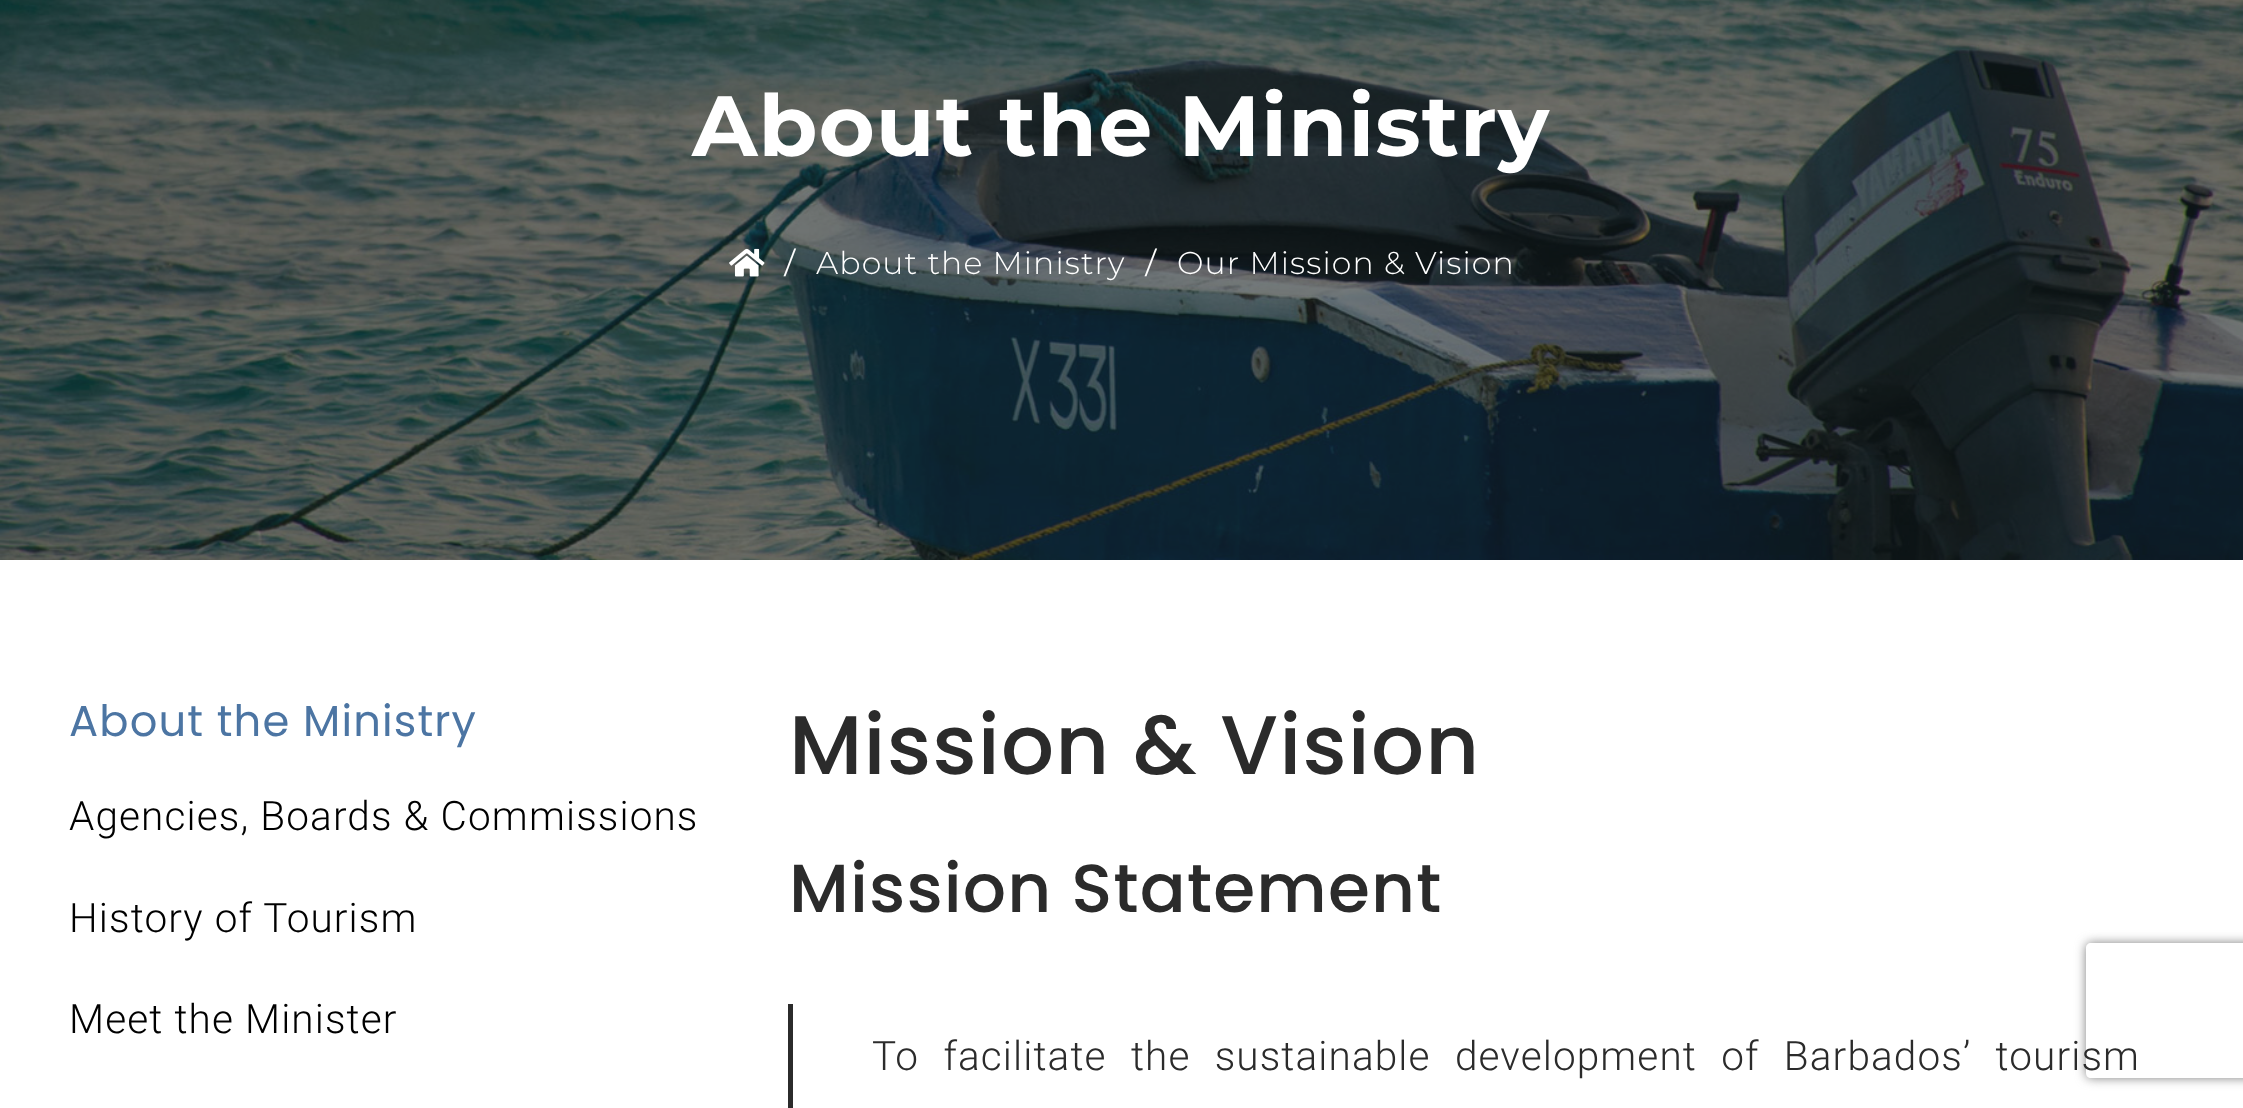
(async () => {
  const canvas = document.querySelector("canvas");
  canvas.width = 2243;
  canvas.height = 1108;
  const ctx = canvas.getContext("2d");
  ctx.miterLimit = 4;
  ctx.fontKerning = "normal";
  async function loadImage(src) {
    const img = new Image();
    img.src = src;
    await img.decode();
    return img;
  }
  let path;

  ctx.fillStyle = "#ffffff";
  ctx.fillRect(0, 0, 2243, 1108);
  ctx.drawImage(await loadImage("img/1.png"), 0, 0, 2243, 560);
  ctx.drawImage(await loadImage("img/2.png"), 729, 248, 36, 29);
  ctx.fillStyle = "#2b2b2b";
  ctx.fillRect(788, 1004, 5, 104);
  ctx.save();
  path = new Path2D("M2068 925H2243V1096H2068ZM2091 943H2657C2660 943 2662 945 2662 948V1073C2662 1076 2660 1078 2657 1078H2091C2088 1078 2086 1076 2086 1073V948C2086 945 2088 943 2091 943Z");
  ctx.clip(path, "evenodd");
  ctx.fillStyle = "#808080";
  ctx.filter = "blur(5.5px)";
  ctx.beginPath();
  ctx.roundRect(2086, 943, 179, 135, 5);
  ctx.fill();
  ctx.filter = "none";
  ctx.restore();
  ctx.letterSpacing = "1.12px";
  ctx.font = "bold 85.5px Montserrat";
  ctx.fillStyle = "#ffffff";
  ctx.fillText("About the Ministry", 692, 156);
  ctx.font = "300 36px Roboto";
  ctx.fillText("/", 783, 274);
  ctx.font = "300 31.5px Montserrat";
  ctx.fillText("About the Ministry", 816, 274);
  ctx.font = "300 36px Roboto";
  ctx.fillText("/", 1144, 274);
  ctx.font = "300 31.5px Montserrat";
  ctx.fillText("Our Mission & Vision", 1177, 274);
  ctx.font = "43.25px Poppins";
  ctx.fillStyle = "#4c75a3";
  ctx.fillText("About the Ministry", 69, 736);
  ctx.font = "300 40.5px Roboto";
  ctx.fillStyle = "#000000";
  for (const [text, x, y] of [
    ["Agencies, Boards & Commissions", 69, 830],
    ["History of Tourism", 69, 932],
    ["Meet the Minister", 69, 1033],
  ]) {
    ctx.fillText(text, x, y);
  }
  ctx.font = "500 83.25px Poppins";
  ctx.fillStyle = "#2b2b2b";
  ctx.fillText("Mission & Vision", 789, 774);
  ctx.font = "500 67.9px Poppins";
  ctx.fillText("Mission Statement", 789, 912);
  ctx.wordSpacing = "13.25px";
  ctx.font = "300 40.5px Roboto";
  ctx.fillText("To facilitate the sustainable development of Barbados’ tourism", 872, 1070);
})();
